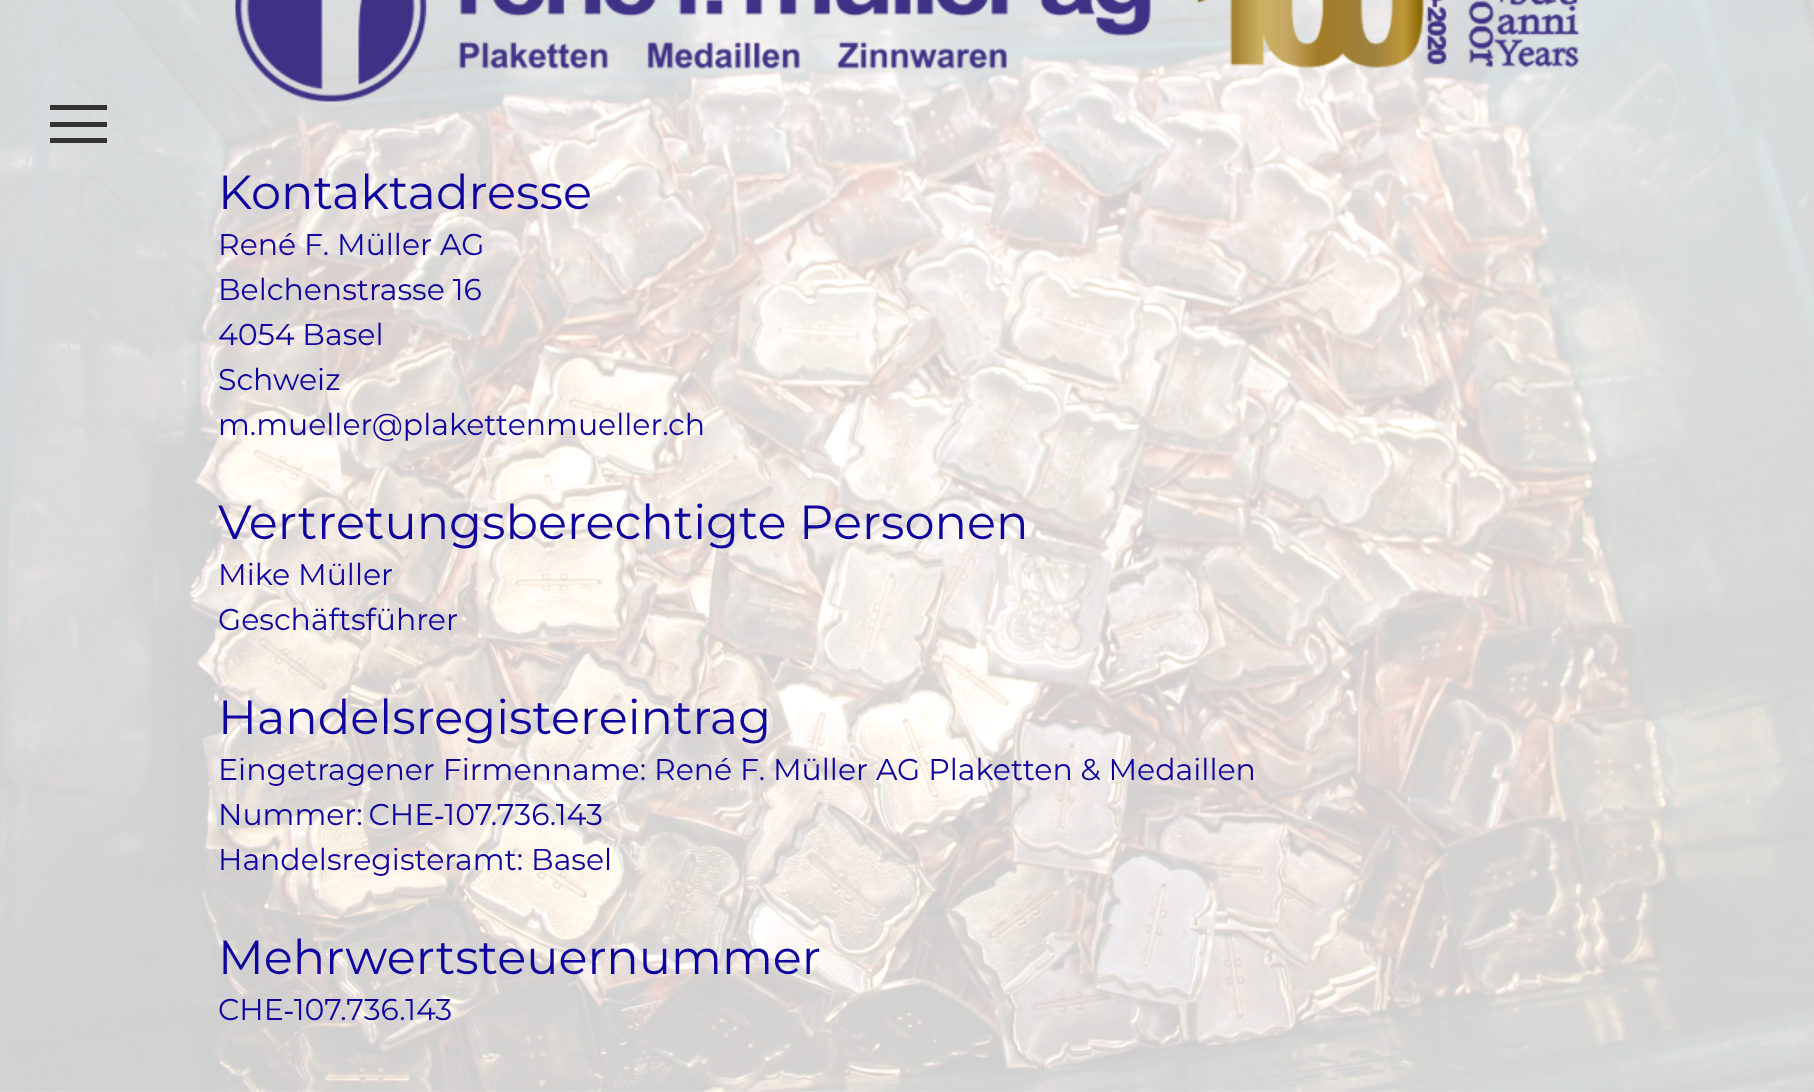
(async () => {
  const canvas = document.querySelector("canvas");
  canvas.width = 1814;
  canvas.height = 1092;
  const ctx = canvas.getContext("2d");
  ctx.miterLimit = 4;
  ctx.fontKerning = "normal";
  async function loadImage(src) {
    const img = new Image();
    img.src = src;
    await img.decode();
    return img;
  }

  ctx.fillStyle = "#ffffff";
  ctx.fillRect(0, 0, 1814, 1092);
  ctx.drawImage(await loadImage("img/1.png"), 0, 0, 1814, 1092);
  for (const [x, y, w, h, color] of [
    [50, 122, 57, 5, "#333333"],
    [50, 105, 57, 5, "#333333"],
    [50, 138, 57, 5, "#333333"],
  ]) {
    ctx.fillStyle = color;
    ctx.fillRect(x, y, w, h);
  }
  ctx.drawImage(await loadImage("img/2.png"), 235, 0, 1345, 102);
  ctx.font = "100 48px Montserrat";
  ctx.fillStyle = "#0f059e";
  ctx.fillText("Kontaktadresse", 218, 209);
  ctx.font = "100 30px Montserrat";
  for (const [text, x, y] of [
    ["René F. Müller AG", 218, 255],
    ["Belchenstrasse 16", 218, 300],
    ["4054 Basel", 218, 345],
    ["Schweiz", 218, 390],
    ["m.mueller@plakettenmueller.ch", 218, 435],
  ]) {
    ctx.fillText(text, x, y);
  }
  ctx.font = "100 48px Montserrat";
  ctx.fillText("Vertretungsberechtigte Personen", 218, 539);
  ctx.font = "100 30px Montserrat";
  ctx.fillText("Mike Müller", 218, 585);
  ctx.fillText("Geschäftsführer", 218, 630);
  ctx.font = "100 48px Montserrat";
  ctx.fillText("Handelsregistereintrag", 218, 734);
  ctx.font = "100 30px Montserrat";
  ctx.fillText("Eingetragener Firmenname: René F. Müller AG Plaketten & Medaillen", 218, 780);
  ctx.wordSpacing = "-2px";
  ctx.fillText("Nummer: CHE‑107.736.143", 218, 825);
  ctx.wordSpacing = "0px";
  ctx.fillText("Handelsregisteramt: Basel", 218, 870);
  ctx.font = "100 48px Montserrat";
  ctx.fillText("Mehrwertsteuernummer", 218, 974);
  ctx.font = "100 30px Montserrat";
  ctx.fillText("CHE‑107.736.143", 218, 1020);
})();
